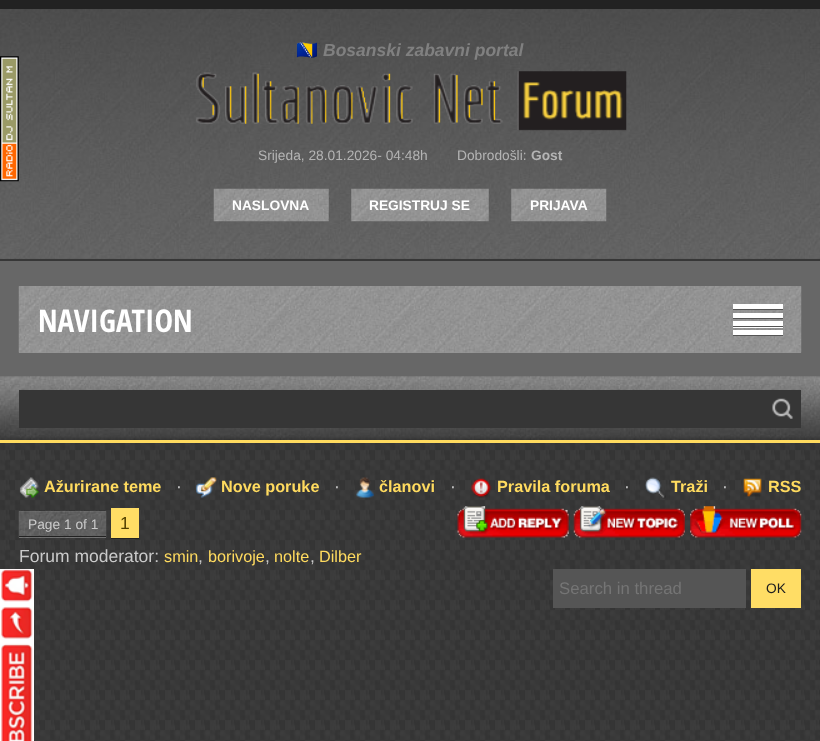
(async () => {
  const canvas = document.querySelector("canvas");
  canvas.width = 820;
  canvas.height = 741;
  const ctx = canvas.getContext("2d");
  ctx.miterLimit = 4;
  ctx.fontKerning = "normal";
  async function loadImage(src) {
    const img = new Image();
    img.src = src;
    await img.decode();
    return img;
  }

  ctx.fillStyle = "#ffffff";
  ctx.fillRect(0, 0, 820, 741);
  ctx.drawImage(await loadImage("img/1.png"), 0, 443, 820, 298);
  ctx.drawImage(await loadImage("img/2.png"), 0, 9, 820, 250);
  ctx.fillStyle = "#222222";
  ctx.fillRect(0, 0, 820, 9);
  ctx.fillStyle = "#373737";
  ctx.fillRect(0, 259, 820, 2);
  ctx.drawImage(await loadImage("img/3.png"), 196, 71, 431, 60);
  ctx.drawImage(await loadImage("img/4.png"), 213, 188, 116, 34);
  ctx.drawImage(await loadImage("img/5.png"), 351, 188, 138, 34);
  ctx.drawImage(await loadImage("img/6.png"), 511, 188, 96, 34);
  ctx.fillStyle = "#676767";
  ctx.fillRect(0, 261, 820, 116);
  ctx.drawImage(await loadImage("img/7.png"), 0, 376, 820, 64);
  ctx.fillStyle = "#ffdb5f";
  ctx.fillRect(0, 440, 820, 3);
  ctx.fillStyle = "#949494";
  ctx.fillRect(19, 286, 782, 67);
  ctx.drawImage(await loadImage("img/8.png"), 18, 286, 784, 67);
  for (const [x, y, w, h, color] of [
    [733, 304, 50, 5, "#ffffff"],
    [733, 309, 50, 1, "#555555"],
    [733, 313, 50, 5, "#ffffff"],
    [733, 318, 50, 1, "#555555"],
    [733, 321, 50, 7, "#ffffff"],
    [733, 326, 50, 1, "#555555"],
    [733, 330, 50, 5, "#ffffff"],
    [733, 335, 50, 1, "#555555"],
    [19, 390, 782, 38, "#363636"],
  ]) {
    ctx.fillStyle = color;
    ctx.fillRect(x, y, w, h);
  }
  ctx.drawImage(await loadImage("img/9.png"), 772, 398, 21, 21);
  ctx.drawImage(await loadImage("img/10.png"), 0, 56, 19, 126);
  ctx.drawImage(await loadImage("img/11.png"), 19, 477, 20, 21);
  ctx.drawImage(await loadImage("img/12.png"), 196, 477, 21, 21);
  ctx.drawImage(await loadImage("img/13.png"), 356, 477, 18, 21);
  ctx.drawImage(await loadImage("img/14.png"), 471, 478, 21, 20);
  ctx.drawImage(await loadImage("img/15.png"), 645, 477, 21, 22);
  ctx.drawImage(await loadImage("img/16.png"), 743, 478, 19, 19);
  ctx.fillStyle = "#818181";
  ctx.fillRect(19, 511, 87, 27);
  ctx.drawImage(await loadImage("img/17.png"), 18, 511, 89, 27);
  for (const [x, y, w, h, color] of [
    [19, 536, 87, 1, "#222222"],
    [111, 508, 28, 30, "#ffdd65"],
    [111, 538, 28, 1, "#222222"],
  ]) {
    ctx.fillStyle = color;
    ctx.fillRect(x, y, w, h);
  }
  ctx.drawImage(await loadImage("img/18.png"), 457, 506, 112, 32);
  ctx.drawImage(await loadImage("img/19.png"), 573, 506, 112, 32);
  ctx.drawImage(await loadImage("img/20.png"), 690, 506, 112, 32);
  ctx.fillStyle = "#555555";
  ctx.fillRect(553, 569, 193, 39);
  ctx.fillStyle = "#ffdd65";
  ctx.fillRect(751, 569, 50, 39);
  ctx.drawImage(await loadImage("img/21.png"), 0, 569, 34, 172);
  ctx.font = "17.5px Noto Color Emoji";
  ctx.fillStyle = "#e0dfdf";
  ctx.fillText("🇧🇦", 296, 56);
  ctx.font = "italic bold 17.5px Liberation Sans";
  ctx.fillStyle = "#808080";
  ctx.fillText("Bosanski zabavni portal", 323, 56);
  ctx.font = "13.75px Liberation Sans";
  ctx.fillStyle = "#b4b4b4";
  ctx.fillText("Srijeda, 28.01.2026- 04:48h", 258, 160);
  ctx.fillText("Dobrodošli:", 457, 160);
  ctx.font = "bold 13.75px Liberation Sans";
  ctx.fillText("Gost", 531, 160);
  ctx.fillStyle = "#ffffff";
  for (const [text, x, y] of [
    ["NASLOVNA", 232, 210],
    ["REGISTRUJ SE", 369, 210],
    ["PRIJAVA", 530, 210],
  ]) {
    ctx.fillText(text, x, y);
  }
  ctx.font = "bold 31.25px Open Sans Condensed";
  ctx.fillText("NAVIGATION", 38, 332);
  ctx.font = "bold 16.25px Liberation Sans";
  ctx.fillStyle = "#ffdb5f";
  ctx.fillText("Ažurirane teme", 44, 492);
  ctx.font = "17.5px Liberation Sans";
  ctx.fillStyle = "#cacaca";
  ctx.fillText("·", 176, 492);
  ctx.font = "bold 16.25px Liberation Sans";
  ctx.fillStyle = "#ffdb5f";
  ctx.fillText("Nove poruke", 221, 492);
  ctx.font = "17.5px Liberation Sans";
  ctx.fillStyle = "#cacaca";
  ctx.fillText("·", 334, 492);
  ctx.font = "bold 16.25px Liberation Sans";
  ctx.fillStyle = "#ffdb5f";
  ctx.fillText("članovi", 379, 492);
  ctx.font = "17.5px Liberation Sans";
  ctx.fillStyle = "#cacaca";
  ctx.fillText("·", 450, 492);
  ctx.font = "bold 16.25px Liberation Sans";
  ctx.fillStyle = "#ffdb5f";
  ctx.fillText("Pravila foruma", 497, 492);
  ctx.font = "17.5px Liberation Sans";
  ctx.fillStyle = "#cacaca";
  ctx.fillText("·", 624, 492);
  ctx.font = "bold 16.25px Liberation Sans";
  ctx.fillStyle = "#ffdb5f";
  ctx.fillText("Traži", 671, 492);
  ctx.font = "17.5px Liberation Sans";
  ctx.fillStyle = "#cacaca";
  ctx.fillText("·", 722, 492);
  ctx.font = "bold 16.25px Liberation Sans";
  ctx.fillStyle = "#ffdb5f";
  ctx.fillText("RSS", 768, 492);
  ctx.font = "13.75px Liberation Sans";
  ctx.fillStyle = "#cacaca";
  ctx.fillText("Page 1 of 1", 28, 529);
  ctx.font = "17.5px Liberation Sans";
  ctx.fillStyle = "#513f00";
  ctx.fillText("1", 120, 529);
  ctx.fillStyle = "#cacaca";
  ctx.fillText("Forum moderator:", 19, 562);
  ctx.font = "16.25px Liberation Sans";
  ctx.fillStyle = "#ffdb5f";
  ctx.fillText("smin", 164, 562);
  ctx.font = "17.5px Liberation Sans";
  ctx.fillStyle = "#cacaca";
  ctx.fillText(",", 198, 562);
  ctx.font = "16.25px Liberation Sans";
  ctx.fillStyle = "#ffdb5f";
  ctx.fillText("borivoje", 208, 562);
  ctx.font = "17.5px Liberation Sans";
  ctx.fillStyle = "#cacaca";
  ctx.fillText(",", 265, 562);
  ctx.font = "16.25px Liberation Sans";
  ctx.fillStyle = "#ffdb5f";
  ctx.fillText("nolte", 274, 562);
  ctx.font = "17.5px Liberation Sans";
  ctx.fillStyle = "#cacaca";
  ctx.fillText(",", 310, 562);
  ctx.font = "16.25px Liberation Sans";
  ctx.fillStyle = "#ffdb5f";
  ctx.fillText("Dilber", 319, 562);
  ctx.font = "16.75px Liberation Sans";
  ctx.fillStyle = "#757575";
  ctx.fillText("Search in thread", 559, 594);
  ctx.font = "13.75px Liberation Sans";
  ctx.fillStyle = "#202020";
  ctx.fillText("OK", 766, 593);
})();
